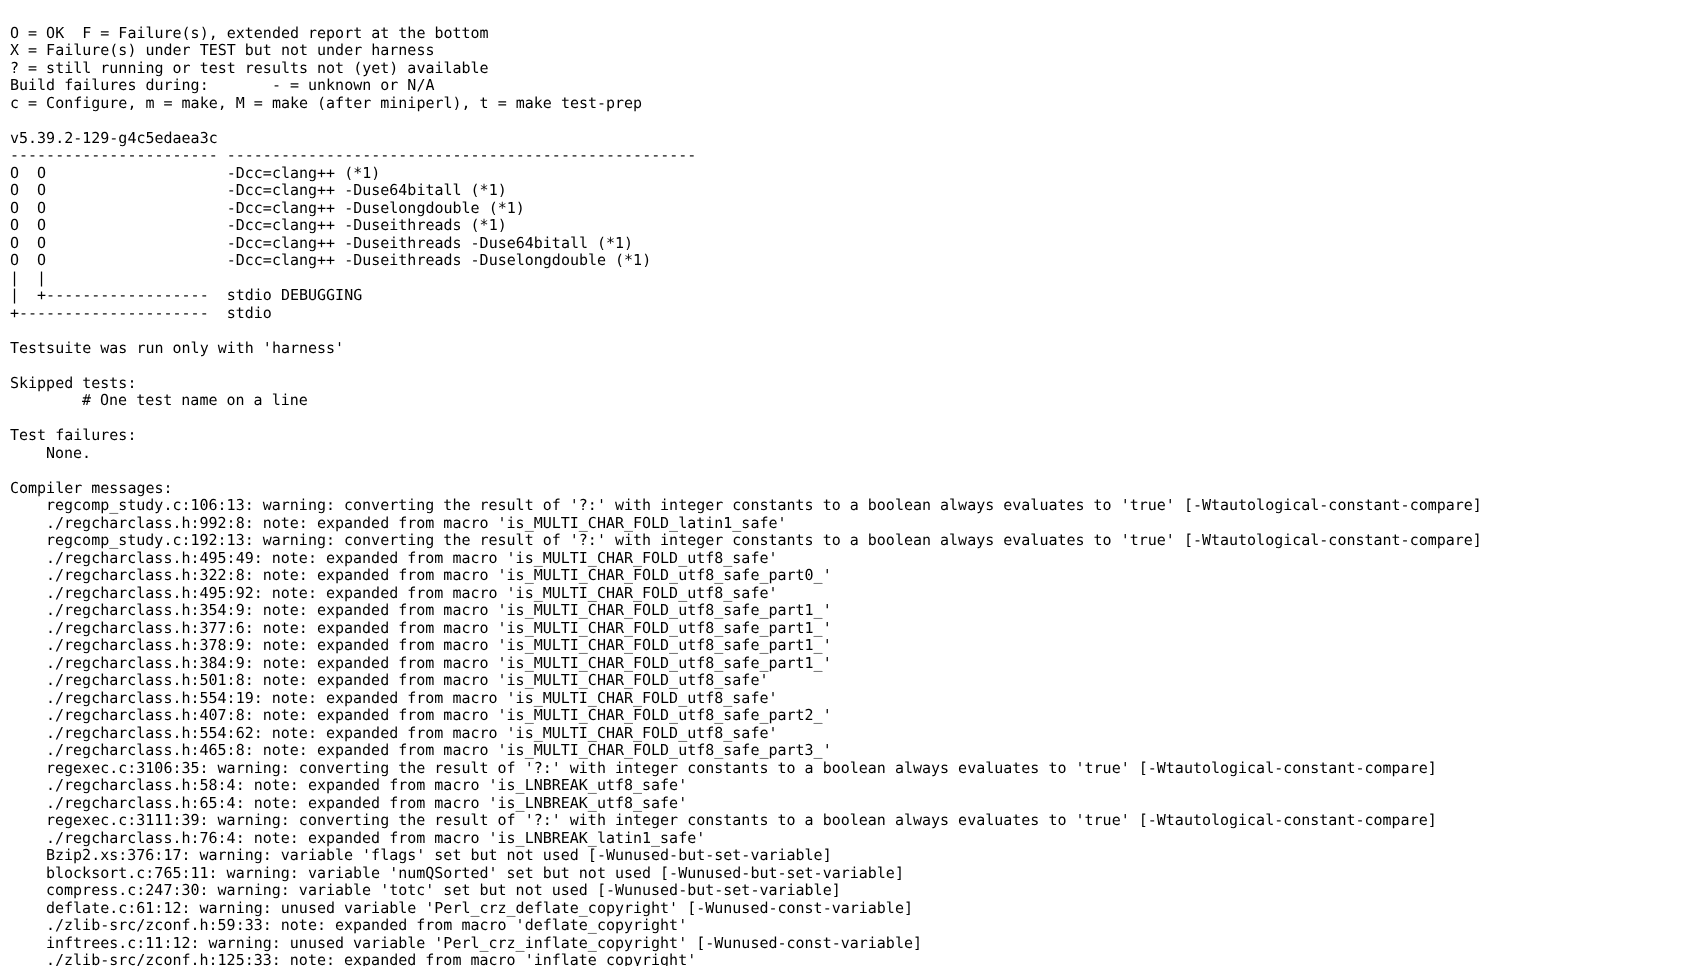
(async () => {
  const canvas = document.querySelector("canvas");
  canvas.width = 1699;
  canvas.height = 966;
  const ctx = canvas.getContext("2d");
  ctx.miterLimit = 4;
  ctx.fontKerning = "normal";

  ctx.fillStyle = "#ffffff";
  ctx.fillRect(0, 0, 1699, 966);
  ctx.font = "15px DejaVu Sans Mono";
  ctx.fillStyle = "#000000";
  for (const [text, x, y] of [
    ["O = OK  F = Failure(s), extended report at the bottom", 10, 38],
    ["X = Failure(s) under TEST but not under harness", 10, 55],
    ["? = still running or test results not (yet) available", 10, 73],
    ["Build failures during:       - = unknown or N/A", 10, 90],
    ["c = Configure, m = make, M = make (after miniperl), t = make test-prep", 10, 108],
    ["v5.39.2-129-g4c5edaea3c", 10, 143],
    ["----------------------- ----------------------------------------------------", 10, 160],
    ["O  O                    -Dcc=clang++ (*1)", 10, 178],
    ["O  O                    -Dcc=clang++ -Duse64bitall (*1)", 10, 195],
    ["O  O                    -Dcc=clang++ -Duselongdouble (*1)", 10, 213],
    ["O  O                    -Dcc=clang++ -Duseithreads (*1)", 10, 230],
    ["O  O                    -Dcc=clang++ -Duseithreads -Duse64bitall (*1)", 10, 248],
    ["O  O                    -Dcc=clang++ -Duseithreads -Duselongdouble (*1)", 10, 265],
    ["|  |", 10, 283],
    ["|  +------------------  stdio DEBUGGING", 10, 300],
    ["+---------------------  stdio", 10, 318],
    ["Testsuite was run only with 'harness'", 10, 353],
    ["Skipped tests:", 10, 388],
    ["# One test name on a line", 82, 405],
    ["Test failures:", 10, 440],
    ["None.", 46, 458],
    ["Compiler messages:", 10, 493],
    ["regcomp_study.c:106:13: warning: converting the result of '?:' with integer constants to a boolean always evaluates to 'true' [-Wtautological-constant-compare]", 46, 510],
    ["./regcharclass.h:992:8: note: expanded from macro 'is_MULTI_CHAR_FOLD_latin1_safe'", 46, 528],
    ["regcomp_study.c:192:13: warning: converting the result of '?:' with integer constants to a boolean always evaluates to 'true' [-Wtautological-constant-compare]", 46, 545],
    ["./regcharclass.h:495:49: note: expanded from macro 'is_MULTI_CHAR_FOLD_utf8_safe'", 46, 563],
    ["./regcharclass.h:322:8: note: expanded from macro 'is_MULTI_CHAR_FOLD_utf8_safe_part0_'", 46, 580],
    ["./regcharclass.h:495:92: note: expanded from macro 'is_MULTI_CHAR_FOLD_utf8_safe'", 46, 598],
    ["./regcharclass.h:354:9: note: expanded from macro 'is_MULTI_CHAR_FOLD_utf8_safe_part1_'", 46, 615],
    ["./regcharclass.h:377:6: note: expanded from macro 'is_MULTI_CHAR_FOLD_utf8_safe_part1_'", 46, 633],
    ["./regcharclass.h:378:9: note: expanded from macro 'is_MULTI_CHAR_FOLD_utf8_safe_part1_'", 46, 650],
    ["./regcharclass.h:384:9: note: expanded from macro 'is_MULTI_CHAR_FOLD_utf8_safe_part1_'", 46, 668],
    ["./regcharclass.h:501:8: note: expanded from macro 'is_MULTI_CHAR_FOLD_utf8_safe'", 46, 685],
    ["./regcharclass.h:554:19: note: expanded from macro 'is_MULTI_CHAR_FOLD_utf8_safe'", 46, 703],
    ["./regcharclass.h:407:8: note: expanded from macro 'is_MULTI_CHAR_FOLD_utf8_safe_part2_'", 46, 720],
    ["./regcharclass.h:554:62: note: expanded from macro 'is_MULTI_CHAR_FOLD_utf8_safe'", 46, 738],
    ["./regcharclass.h:465:8: note: expanded from macro 'is_MULTI_CHAR_FOLD_utf8_safe_part3_'", 46, 755],
    ["regexec.c:3106:35: warning: converting the result of '?:' with integer constants to a boolean always evaluates to 'true' [-Wtautological-constant-compare]", 46, 773],
    ["./regcharclass.h:58:4: note: expanded from macro 'is_LNBREAK_utf8_safe'", 46, 790],
    ["./regcharclass.h:65:4: note: expanded from macro 'is_LNBREAK_utf8_safe'", 46, 808],
    ["regexec.c:3111:39: warning: converting the result of '?:' with integer constants to a boolean always evaluates to 'true' [-Wtautological-constant-compare]", 46, 825],
    ["./regcharclass.h:76:4: note: expanded from macro 'is_LNBREAK_latin1_safe'", 46, 843],
    ["Bzip2.xs:376:17: warning: variable 'flags' set but not used [-Wunused-but-set-variable]", 46, 860],
    ["blocksort.c:765:11: warning: variable 'numQSorted' set but not used [-Wunused-but-set-variable]", 46, 878],
    ["compress.c:247:30: warning: variable 'totc' set but not used [-Wunused-but-set-variable]", 46, 895],
    ["deflate.c:61:12: warning: unused variable 'Perl_crz_deflate_copyright' [-Wunused-const-variable]", 46, 913],
    ["./zlib-src/zconf.h:59:33: note: expanded from macro 'deflate_copyright'", 46, 930],
    ["inftrees.c:11:12: warning: unused variable 'Perl_crz_inflate_copyright' [-Wunused-const-variable]", 46, 948],
    ["./zlib-src/zconf.h:125:33: note: expanded from macro 'inflate_copyright'", 46, 965],
  ]) {
    ctx.fillText(text, x, y);
  }
})();
